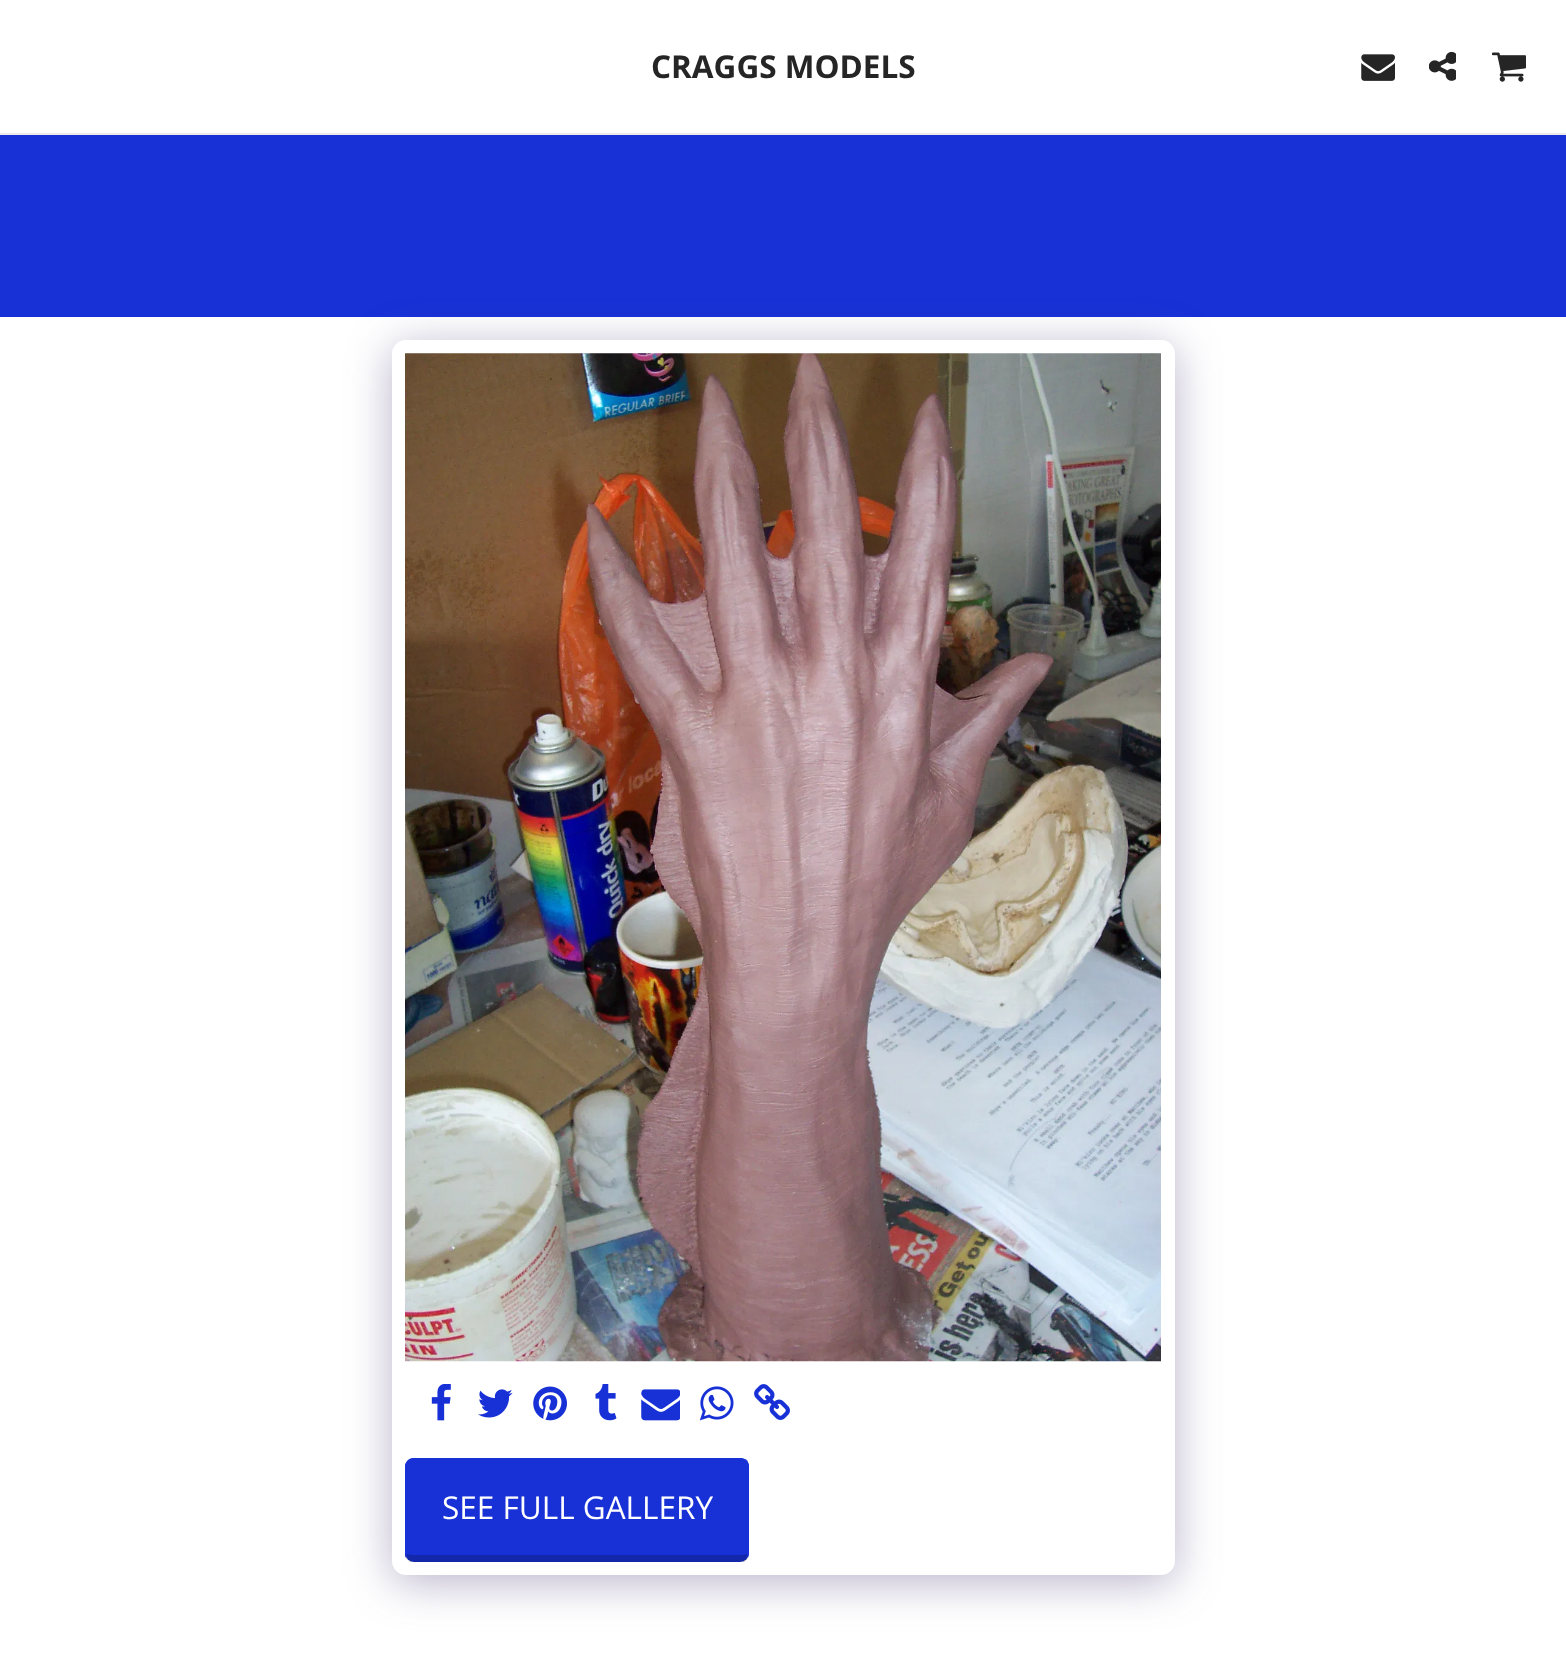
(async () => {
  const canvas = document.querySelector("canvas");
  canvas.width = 1566;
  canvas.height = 1679;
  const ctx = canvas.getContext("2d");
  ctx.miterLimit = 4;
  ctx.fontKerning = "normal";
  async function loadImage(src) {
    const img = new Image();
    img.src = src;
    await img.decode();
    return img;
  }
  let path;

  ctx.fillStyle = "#ffffff";
  ctx.fillRect(0, 0, 1566, 1679);
  ctx.fillStyle = "#ebebeb";
  ctx.fillRect(0, 133, 1566, 2);
  ctx.drawImage(await loadImage("img/1.png"), 1361, 54, 34, 27);
  ctx.drawImage(await loadImage("img/2.png"), 1429, 51, 27, 30);
  ctx.drawImage(await loadImage("img/3.png"), 1492, 52, 34, 30);
  ctx.fillStyle = "#1831d6";
  ctx.fillRect(0, 135, 1566, 182);
  ctx.fillStyle = "rgba(77, 63, 122, 0.4)";
  ctx.filter = "blur(22.5px)";
  ctx.beginPath();
  ctx.roundRect(392, 347, 783, 1235, 14);
  ctx.fill();
  ctx.filter = "none";
  ctx.fillStyle = "#ffffff";
  ctx.beginPath();
  ctx.roundRect(392, 340, 783, 1235, 14);
  ctx.fill();
  ctx.drawImage(await loadImage("img/4.png"), 405, 353, 756, 1009);
  ctx.drawImage(await loadImage("img/5.png"), 431, 1384, 20, 37);
  ctx.drawImage(await loadImage("img/6.png"), 478, 1389, 35, 29);
  ctx.drawImage(await loadImage("img/7.png"), 533, 1386, 34, 35);
  ctx.drawImage(await loadImage("img/8.png"), 595, 1384, 22, 37);
  ctx.drawImage(await loadImage("img/9.png"), 641, 1389, 39, 32);
  ctx.drawImage(await loadImage("img/10.png"), 700, 1386, 34, 35);
  ctx.drawImage(await loadImage("img/11.png"), 754, 1384, 36, 36);
  ctx.fillStyle = "#1831d6";
  ctx.beginPath();
  ctx.roundRect(405, 1458, 344, 104, 9);
  ctx.fill();
  path = new Path2D("M413 1458C411 1458 409 1459 408 1460L409 1462L412 1460H741C743 1460 744 1461 745 1462L747 1460C745 1459 743 1458 741 1458Z");
  ctx.fill(path);
  path = new Path2D("M747 1460C748 1462 749 1464 749 1466V1554L748 1558L747 1554V1465L745 1462Z");
  ctx.fill(path);
  ctx.fillStyle = "rgba(0, 0, 0, 0.2)";
  path = new Path2D("M410 1562C409 1561 407 1559 406 1558L407 1554C408 1554 411 1555 413 1555H741C744 1555 746 1554 747 1554L748 1558C747 1559 746 1561 744 1562Z");
  ctx.fill(path);
  ctx.fillStyle = "#1831d6";
  path = new Path2D("M405 1466V1554C405 1555 405 1557 406 1558L407 1554V1465L409 1462L408 1460C406 1462 405 1464 405 1466Z");
  ctx.fill(path);
  ctx.font = "bold 31.5px Open Sans";
  ctx.fillStyle = "#252525";
  ctx.fillText("CRAGGS MODELS", 651, 78);
  ctx.font = "31.5px Open Sans";
  ctx.fillStyle = "#ffffff";
  ctx.fillText("SEE FULL GALLERY", 442, 1519);
})();
